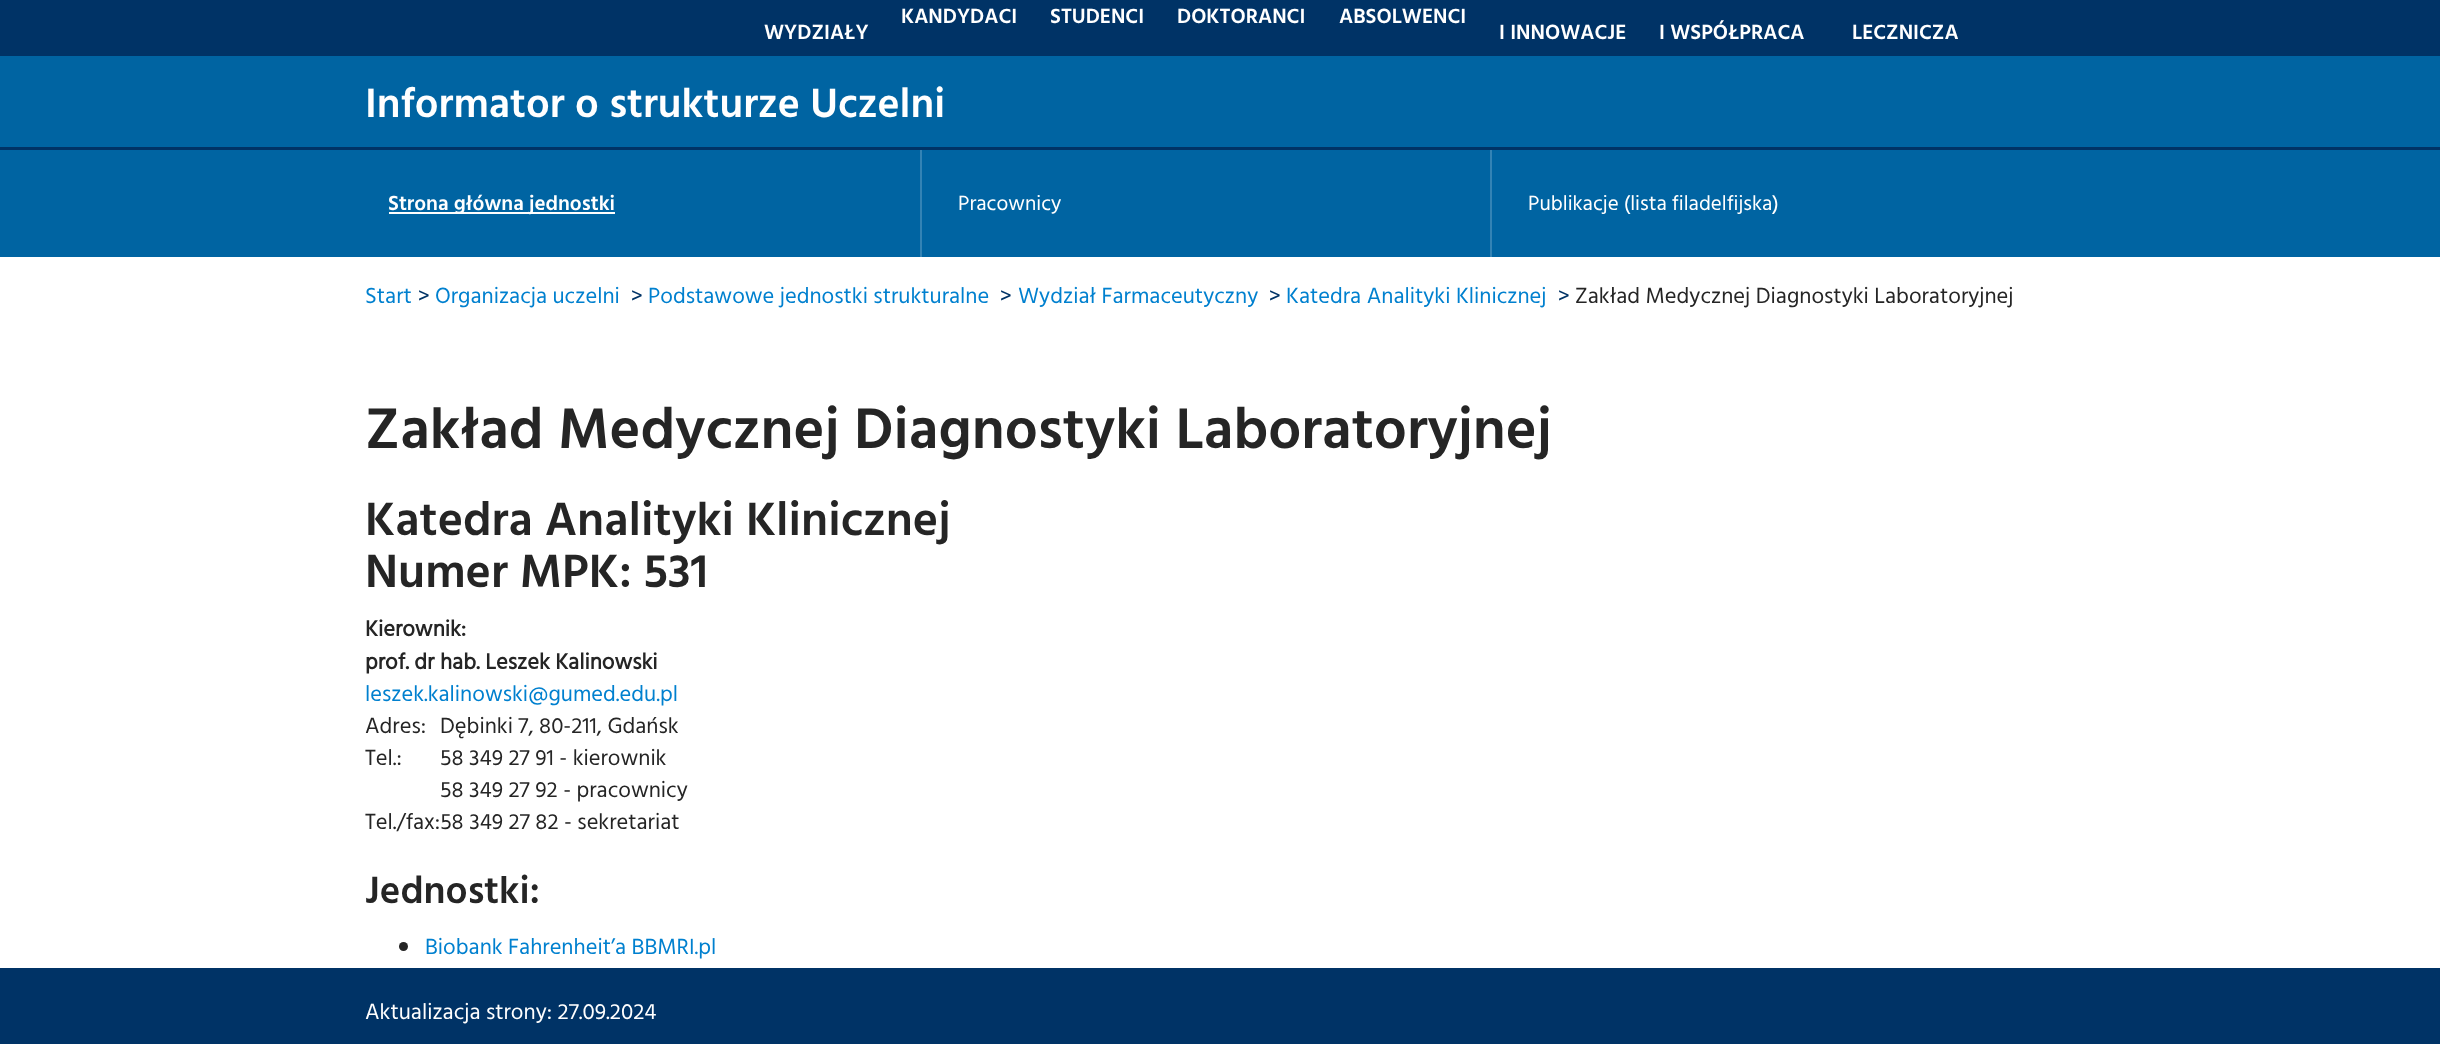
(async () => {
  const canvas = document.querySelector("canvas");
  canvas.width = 2440;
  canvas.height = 1044;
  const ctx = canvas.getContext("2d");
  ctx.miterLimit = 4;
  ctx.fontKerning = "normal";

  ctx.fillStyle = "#ffffff";
  ctx.fillRect(0, 0, 2440, 1044);
  for (const [x, y, w, h, color] of [
    [0, 0, 2440, 56, "#003366"],
    [0, 56, 2440, 91, "#0064a2"],
    [0, 147, 2440, 3, "#003366"],
    [0, 150, 2440, 107, "#0064a2"],
    [389, 212, 226, 2, "#ffffff"],
    [920, 150, 2, 107, "#3383b5"],
    [1490, 150, 2, 107, "#3383b5"],
  ]) {
    ctx.fillStyle = color;
    ctx.fillRect(x, y, w, h);
  }
  ctx.fillStyle = "#252525";
  ctx.beginPath();
  ctx.arc(403.5, 946.5, 4.5, 0, Math.PI * 2);
  ctx.fill();
  ctx.fillStyle = "#003366";
  ctx.fillRect(0, 968, 2440, 76);
  ctx.font = "600 21px Hind Vadodara";
  ctx.fillStyle = "#ffffff";
  for (const [text, x, y] of [
    ["KANDYDACI", 901, 23],
    ["STUDENCI", 1050, 23],
    ["DOKTORANCI", 1177, 23],
    ["ABSOLWENCI", 1339, 23],
    ["WYDZIAŁY", 764, 39],
    ["I INNOWACJE", 1499, 39],
    ["I WSPÓŁPRACA", 1659, 39],
    ["LECZNICZA", 1852, 39],
  ]) {
    ctx.fillText(text, x, y);
  }
  ctx.font = "600 42px Hind Vadodara";
  ctx.fillText("Informator o strukturze Uczelni", 365, 117);
  ctx.font = "600 21px Hind Vadodara";
  ctx.fillText("Strona główna jednostki", 388, 210);
  ctx.font = "21px Hind Vadodara";
  ctx.fillText("Pracownicy", 958, 210);
  ctx.fillText("Publikacje (lista filadelfijska)", 1528, 210);
  ctx.font = "22.5px Hind Vadodara";
  ctx.fillStyle = "#0080cf";
  ctx.fillText("Start", 365, 303);
  ctx.fillStyle = "#003366";
  ctx.fillText(">", 418, 303);
  ctx.fillStyle = "#0080cf";
  ctx.fillText("Organizacja uczelni", 435, 303);
  ctx.fillStyle = "#003366";
  ctx.fillText(">", 631, 303);
  ctx.fillStyle = "#0080cf";
  ctx.fillText("Podstawowe jednostki strukturalne", 648, 303);
  ctx.fillStyle = "#003366";
  ctx.fillText(">", 1000, 303);
  ctx.fillStyle = "#0080cf";
  ctx.fillText("Wydział Farmaceutyczny", 1018, 303);
  ctx.fillStyle = "#003366";
  ctx.fillText(">", 1269, 303);
  ctx.fillStyle = "#0080cf";
  ctx.fillText("Katedra Analityki Klinicznej", 1286, 303);
  ctx.fillStyle = "#003366";
  ctx.fillText(">", 1558, 303);
  ctx.fillStyle = "#252525";
  ctx.fillText("Zakład Medycznej Diagnostyki Laboratoryjnej", 1575, 303);
  ctx.font = "600 58.5px Hind Vadodara";
  ctx.fillText("Zakład Medycznej Diagnostyki Laboratoryjnej", 365, 448);
  ctx.font = "600 48px Hind Vadodara";
  ctx.fillText("Katedra Analityki Klinicznej", 365, 535);
  ctx.fillText("Numer MPK: 531", 365, 587);
  ctx.font = "bold 22.5px Hind Vadodara";
  ctx.fillText("Kierownik:", 365, 636);
  ctx.fillText("prof. dr hab. Leszek Kalinowski", 365, 669);
  ctx.font = "22.5px Hind Vadodara";
  ctx.fillStyle = "#0080cf";
  ctx.fillText("leszek.kalinowski@gumed.edu.pl", 365, 701);
  ctx.fillStyle = "#252525";
  for (const [text, x, y] of [
    ["Adres:", 365, 733],
    ["Dębinki 7, 80-211, Gdańsk", 440, 733],
    ["Tel.:", 365, 765],
    ["58 349 27 91 - kierownik", 440, 765],
    ["58 349 27 92 - pracownicy", 440, 797],
    ["Tel./fax:58 349 27 82 - sekretariat", 365, 829],
  ]) {
    ctx.fillText(text, x, y);
  }
  ctx.font = "600 39px Hind Vadodara";
  ctx.fillText("Jednostki:", 365, 903);
  ctx.font = "22.5px Hind Vadodara";
  ctx.fillStyle = "#0080cf";
  ctx.fillText("Biobank Fahrenheit’a BBMRI.pl", 425, 954);
  ctx.fillStyle = "#ffffff";
  ctx.fillText("Aktualizacja strony: 27.09.2024", 365, 1019);
})();
